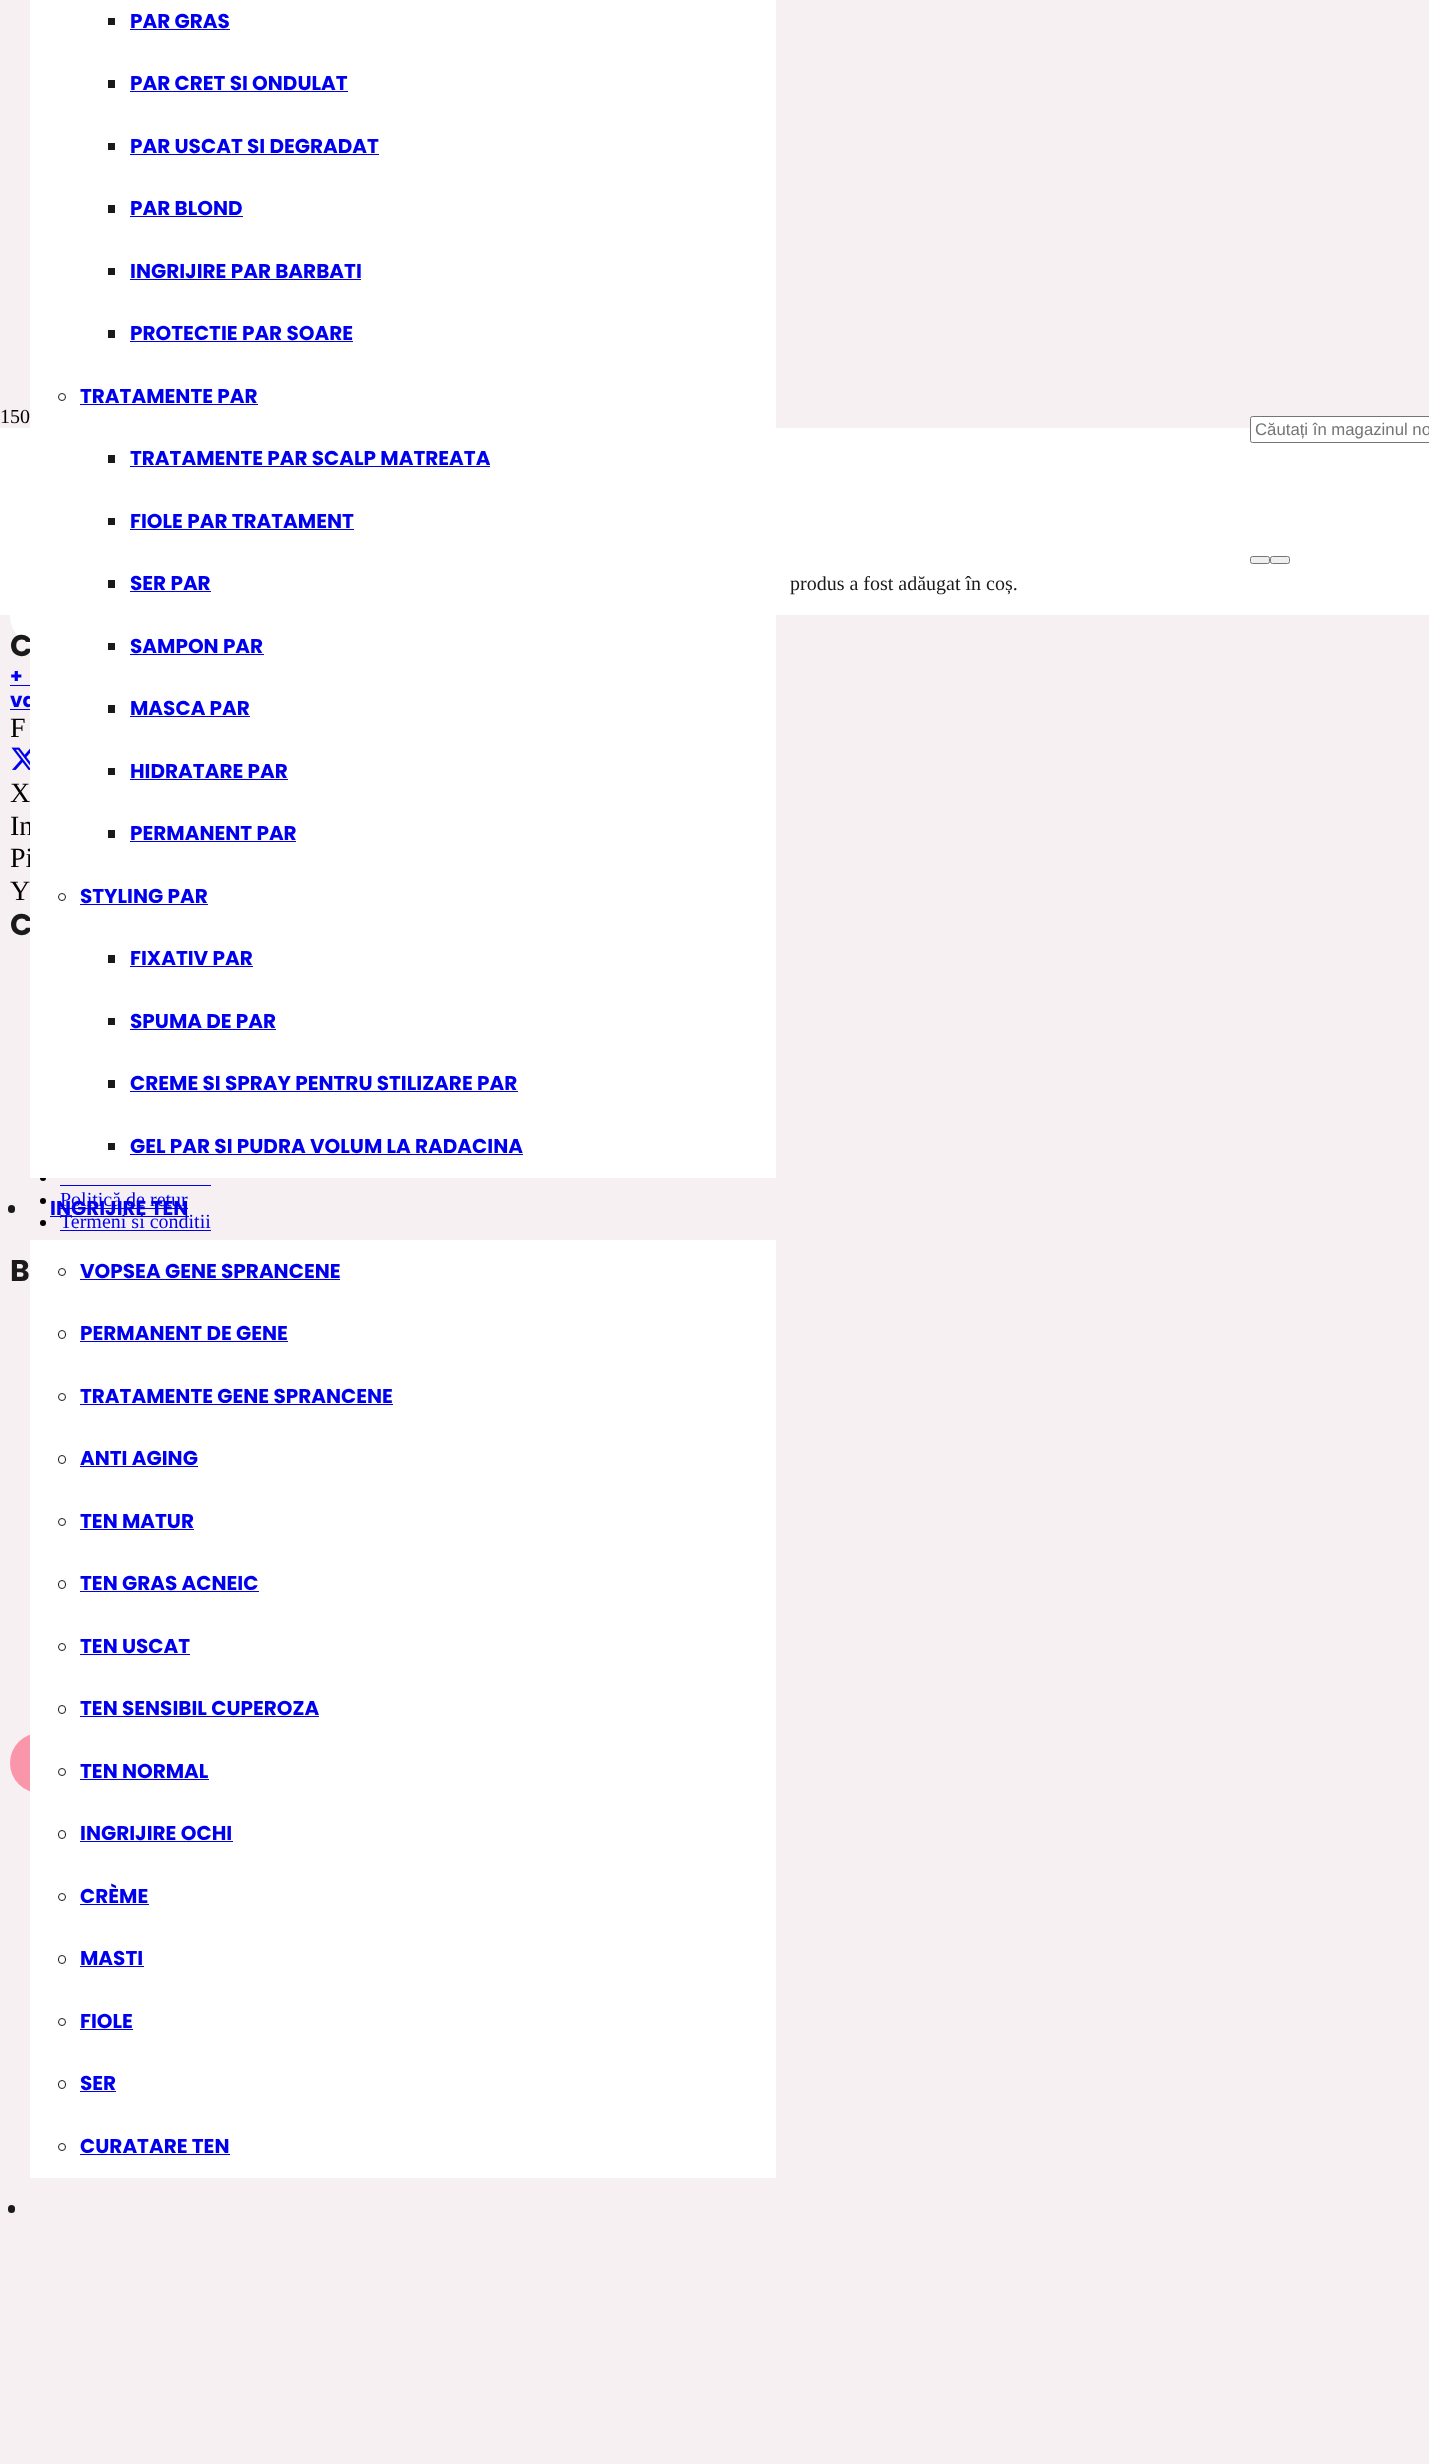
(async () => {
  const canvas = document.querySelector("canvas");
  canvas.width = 1429;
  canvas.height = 2464;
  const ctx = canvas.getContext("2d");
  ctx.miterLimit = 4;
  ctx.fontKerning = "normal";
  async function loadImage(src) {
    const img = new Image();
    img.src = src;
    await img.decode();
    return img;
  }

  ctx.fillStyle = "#f7f0f2";
  ctx.fillRect(0, 0, 1429, 2464);
  ctx.fillStyle = "#1a1a1a";
  ctx.beginPath();
  ctx.roundRect(8, 1205, 7, 8, 3.5);
  ctx.fill();
  ctx.fillStyle = "#0000ee";
  ctx.fillRect(50, 1216, 139, 1);
  ctx.fillStyle = "#fa96aa";
  ctx.beginPath();
  ctx.roundRect(10, 1733, 73, 60, 30);
  ctx.fill();
  ctx.fillStyle = "#ffffff";
  ctx.fillRect(30, 1240, 746, 938);
  ctx.beginPath();
  ctx.arc(62, 1272, 3.5, 0, Math.PI * 2);
  ctx.strokeStyle = "#1a1a1a";
  ctx.stroke();
  ctx.fillStyle = "#0000ee";
  ctx.fillRect(80, 1279, 260, 1);
  ctx.beginPath();
  ctx.roundRect(58.5, 1330.5, 7, 8, 3.5);
  ctx.stroke();
  ctx.fillRect(80, 1341, 208, 1);
  ctx.beginPath();
  ctx.arc(62, 1397, 3.5, 0, Math.PI * 2);
  ctx.stroke();
  ctx.fillRect(80, 1404, 313, 1);
  ctx.beginPath();
  ctx.roundRect(58.5, 1455.5, 7, 8, 3.5);
  ctx.stroke();
  ctx.fillRect(80, 1466, 118, 1);
  ctx.beginPath();
  ctx.arc(62, 1522, 3.5, 0, Math.PI * 2);
  ctx.stroke();
  ctx.fillRect(80, 1529, 114, 1);
  ctx.beginPath();
  ctx.roundRect(58.5, 1580.5, 7, 8, 3.5);
  ctx.stroke();
  ctx.fillRect(80, 1591, 179, 1);
  ctx.beginPath();
  ctx.arc(62, 1647, 3.5, 0, Math.PI * 2);
  ctx.stroke();
  ctx.fillRect(80, 1654, 110, 1);
  ctx.beginPath();
  ctx.roundRect(58.5, 1705.5, 7, 8, 3.5);
  ctx.stroke();
  ctx.fillRect(80, 1716, 239, 1);
  ctx.beginPath();
  ctx.arc(62, 1772, 3.5, 0, Math.PI * 2);
  ctx.stroke();
  ctx.fillRect(80, 1779, 129, 1);
  ctx.beginPath();
  ctx.roundRect(58.5, 1830.5, 7, 8, 3.5);
  ctx.stroke();
  ctx.fillRect(80, 1841, 153, 1);
  ctx.beginPath();
  ctx.arc(62, 1897, 3.5, 0, Math.PI * 2);
  ctx.stroke();
  ctx.fillRect(80, 1904, 69, 1);
  ctx.beginPath();
  ctx.roundRect(58.5, 1955.5, 7, 8, 3.5);
  ctx.stroke();
  ctx.fillRect(80, 1966, 64, 1);
  ctx.beginPath();
  ctx.arc(62, 2022, 3.5, 0, Math.PI * 2);
  ctx.stroke();
  ctx.fillRect(80, 2029, 53, 1);
  ctx.beginPath();
  ctx.roundRect(58.5, 2080.5, 7, 8, 3.5);
  ctx.stroke();
  ctx.fillRect(80, 2091, 36, 1);
  ctx.beginPath();
  ctx.arc(62, 2147, 3.5, 0, Math.PI * 2);
  ctx.stroke();
  ctx.fillRect(80, 2154, 150, 1);
  ctx.fillStyle = "#1a1a1a";
  ctx.beginPath();
  ctx.roundRect(8, 2205, 7, 8, 3.5);
  ctx.fill();
  ctx.fillStyle = "#ffffff";
  ctx.beginPath();
  ctx.roundRect(10, 586, 344, 60, 30);
  ctx.fill();
  ctx.fillRect(0, 428, 1429, 187);
  ctx.beginPath();
  ctx.roundRect(1250.5, 416.5, 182, 26, 2);
  ctx.fill();
  ctx.strokeStyle = "#767676";
  ctx.stroke();
  ctx.fillStyle = "#efefef";
  ctx.beginPath();
  ctx.roundRect(1250.5, 556.5, 19, 7, 2);
  ctx.fill();
  ctx.stroke();
  ctx.beginPath();
  ctx.roundRect(1270.5, 556.5, 19, 7, 2);
  ctx.fill();
  ctx.stroke();
  ctx.fillStyle = "#0000ee";
  ctx.fillRect(10, 685, 20, 1);
  ctx.fillRect(10, 709, 20, 1);
  ctx.drawImage(await loadImage("img/1.png"), 11, 747, 19, 23);
  ctx.fillStyle = "#000000";
  ctx.beginPath();
  ctx.arc(43, 1178, 3, 0, Math.PI * 2);
  ctx.fill();
  ctx.fillStyle = "#0000ee";
  ctx.fillRect(60, 1185, 151, 1);
  ctx.fillStyle = "#000000";
  ctx.beginPath();
  ctx.arc(43, 1201, 3, 0, Math.PI * 2);
  ctx.fill();
  ctx.fillStyle = "#0000ee";
  ctx.fillRect(60, 1208, 128, 1);
  ctx.fillStyle = "#000000";
  ctx.beginPath();
  ctx.arc(43, 1223, 3, 0, Math.PI * 2);
  ctx.fill();
  ctx.fillStyle = "#0000ee";
  ctx.fillRect(60, 1230, 151, 1);
  ctx.font = "20px Liberation Serif";
  ctx.fillStyle = "#000000";
  ctx.fillText("150", 0, 423);
  ctx.font = "bold 20px Poppins";
  ctx.fillStyle = "#0000ee";
  for (const [text, x, y] of [
    ["VOPSEA GENE SPRANCENE", 80, 1278],
    ["PERMANENT DE GENE", 80, 1340],
    ["TRATAMENTE GENE SPRANCENE", 80, 1403],
    ["ANTI AGING", 80, 1465],
    ["TEN MATUR", 80, 1528],
    ["TEN GRAS ACNEIC", 80, 1590],
    ["TEN USCAT", 80, 1653],
    ["TEN SENSIBIL CUPEROZA", 80, 1715],
    ["TEN NORMAL", 80, 1778],
    ["INGRIJIRE OCHI", 80, 1840],
    ["CRÈME", 80, 1903],
    ["MASTI", 80, 1965],
    ["FIOLE", 80, 2028],
    ["SER", 80, 2090],
    ["CURATARE TEN", 80, 2153],
  ]) {
    ctx.fillText(text, x, y);
  }
  ctx.font = "20px Liberation Serif";
  ctx.fillStyle = "#1a1a1a";
  ctx.fillText("produs a fost adăugat în coș.", 790, 590);
  ctx.font = "16.75px Liberation Sans";
  ctx.fillStyle = "#757575";
  ctx.fillText("Căutați în magazinul no", 1255, 435);
  ctx.font = "bold 30px Poppins";
  ctx.fillStyle = "#1a1a1a";
  ctx.fillText("C", 10, 656);
  ctx.font = "bold 20px Poppins";
  ctx.fillStyle = "#0000ee";
  ctx.fillText("+", 10, 683);
  ctx.fillText("va", 10, 707);
  ctx.font = "28px Liberation Serif";
  ctx.fillStyle = "#000000";
  for (const [text, x, y] of [
    ["F", 10, 737],
    ["X", 10, 802],
    ["In", 10, 835],
    ["Pi", 10, 867],
    ["Y", 10, 900],
  ]) {
    ctx.fillText(text, x, y);
  }
  ctx.font = "bold 30px Poppins";
  ctx.fillStyle = "#1a1a1a";
  ctx.fillText("C", 10, 935);
  ctx.fillStyle = "#ffffff";
  ctx.fillRect(30, 0, 746, 1178);
  ctx.font = "bold 20px Poppins";
  ctx.fillStyle = "#0000ee";
  ctx.fillText("GEL PAR SI PUDRA VOLUM LA RADACINA", 130, 1153);
  ctx.fillRect(130, 1154, 393, 1);
  ctx.fillStyle = "#1a1a1a";
  ctx.fillRect(108, 1143, 7, 7);
  ctx.fillStyle = "#0000ee";
  ctx.fillText("CREME SI SPRAY PENTRU STILIZARE PAR", 130, 1090);
  ctx.fillRect(130, 1091, 388, 1);
  ctx.fillStyle = "#1a1a1a";
  ctx.fillRect(108, 1080, 7, 8);
  ctx.fillStyle = "#0000ee";
  ctx.fillText("SPUMA DE PAR", 130, 1028);
  ctx.fillRect(130, 1029, 146, 1);
  ctx.fillStyle = "#1a1a1a";
  ctx.fillRect(108, 1018, 7, 7);
  ctx.fillStyle = "#0000ee";
  ctx.fillText("FIXATIV PAR", 130, 965);
  ctx.fillRect(130, 966, 123, 1);
  ctx.fillStyle = "#1a1a1a";
  ctx.fillRect(108, 955, 7, 8);
  ctx.fillStyle = "#0000ee";
  ctx.fillText("STYLING PAR", 80, 903);
  ctx.fillRect(80, 904, 128, 1);
  ctx.beginPath();
  ctx.arc(62, 897, 3.5, 0, Math.PI * 2);
  ctx.strokeStyle = "#1a1a1a";
  ctx.stroke();
  ctx.fillText("PERMANENT PAR", 130, 840);
  ctx.fillRect(130, 841, 166, 1);
  ctx.fillStyle = "#1a1a1a";
  ctx.fillRect(108, 830, 7, 8);
  ctx.fillStyle = "#0000ee";
  ctx.fillText("HIDRATARE PAR", 130, 778);
  ctx.fillRect(130, 779, 158, 1);
  ctx.fillStyle = "#1a1a1a";
  ctx.fillRect(108, 768, 7, 7);
  ctx.fillStyle = "#0000ee";
  ctx.fillText("MASCA PAR", 130, 715);
  ctx.fillRect(130, 716, 120, 1);
  ctx.fillStyle = "#1a1a1a";
  ctx.fillRect(108, 705, 7, 8);
  ctx.fillStyle = "#0000ee";
  ctx.fillText("SAMPON PAR", 130, 653);
  ctx.fillRect(130, 654, 134, 1);
  ctx.fillStyle = "#1a1a1a";
  ctx.fillRect(108, 643, 7, 7);
  ctx.fillStyle = "#0000ee";
  ctx.fillText("SER PAR", 130, 590);
  ctx.fillRect(130, 591, 81, 1);
  ctx.fillStyle = "#1a1a1a";
  ctx.fillRect(108, 580, 7, 8);
  ctx.fillStyle = "#0000ee";
  ctx.fillText("FIOLE PAR TRATAMENT", 130, 528);
  ctx.fillRect(130, 529, 224, 1);
  ctx.fillStyle = "#1a1a1a";
  ctx.fillRect(108, 518, 7, 7);
  ctx.fillStyle = "#0000ee";
  ctx.fillText("TRATAMENTE PAR SCALP MATREATA", 130, 465);
  ctx.fillRect(130, 466, 360, 1);
  ctx.fillStyle = "#1a1a1a";
  ctx.fillRect(108, 455, 7, 8);
  ctx.fillStyle = "#0000ee";
  ctx.fillText("TRATAMENTE PAR", 80, 403);
  ctx.fillRect(80, 404, 178, 1);
  ctx.beginPath();
  ctx.arc(62, 397, 3.5, 0, Math.PI * 2);
  ctx.stroke();
  ctx.fillText("PROTECTIE PAR SOARE", 130, 340);
  ctx.fillRect(130, 341, 223, 1);
  ctx.fillStyle = "#1a1a1a";
  ctx.fillRect(108, 330, 7, 8);
  ctx.fillStyle = "#0000ee";
  ctx.fillText("INGRIJIRE PAR BARBATI", 130, 278);
  ctx.fillRect(130, 279, 231, 1);
  ctx.fillStyle = "#1a1a1a";
  ctx.fillRect(108, 268, 7, 7);
  ctx.fillStyle = "#0000ee";
  ctx.fillText("PAR BLOND", 130, 215);
  ctx.fillRect(130, 216, 113, 1);
  ctx.fillStyle = "#1a1a1a";
  ctx.fillRect(108, 205, 7, 8);
  ctx.fillStyle = "#0000ee";
  ctx.fillText("PAR USCAT SI DEGRADAT", 130, 153);
  ctx.fillRect(130, 154, 249, 1);
  ctx.fillStyle = "#1a1a1a";
  ctx.fillRect(108, 143, 7, 7);
  ctx.fillStyle = "#0000ee";
  ctx.fillText("PAR CRET SI ONDULAT", 130, 90);
  ctx.fillRect(130, 91, 218, 1);
  ctx.fillStyle = "#1a1a1a";
  ctx.fillRect(108, 80, 7, 8);
  ctx.fillStyle = "#0000ee";
  ctx.fillText("PAR GRAS", 130, 28);
  ctx.fillRect(130, 29, 100, 1);
  ctx.fillStyle = "#1a1a1a";
  ctx.fillRect(108, 18, 7, 7);
  ctx.font = "20px Liberation Serif";
  ctx.fillStyle = "#0000ee";
  ctx.fillText("Politică de retur", 60, 1206);
  ctx.font = "bold 20px Poppins";
  ctx.fillText("INGRIJIRE TEN", 50, 1215);
  ctx.font = "20px Liberation Serif";
  ctx.fillText("Termeni si conditii", 60, 1228);
  ctx.font = "bold 30px Poppins";
  ctx.fillStyle = "#1a1a1a";
  ctx.fillText("B", 10, 1281);
})();
